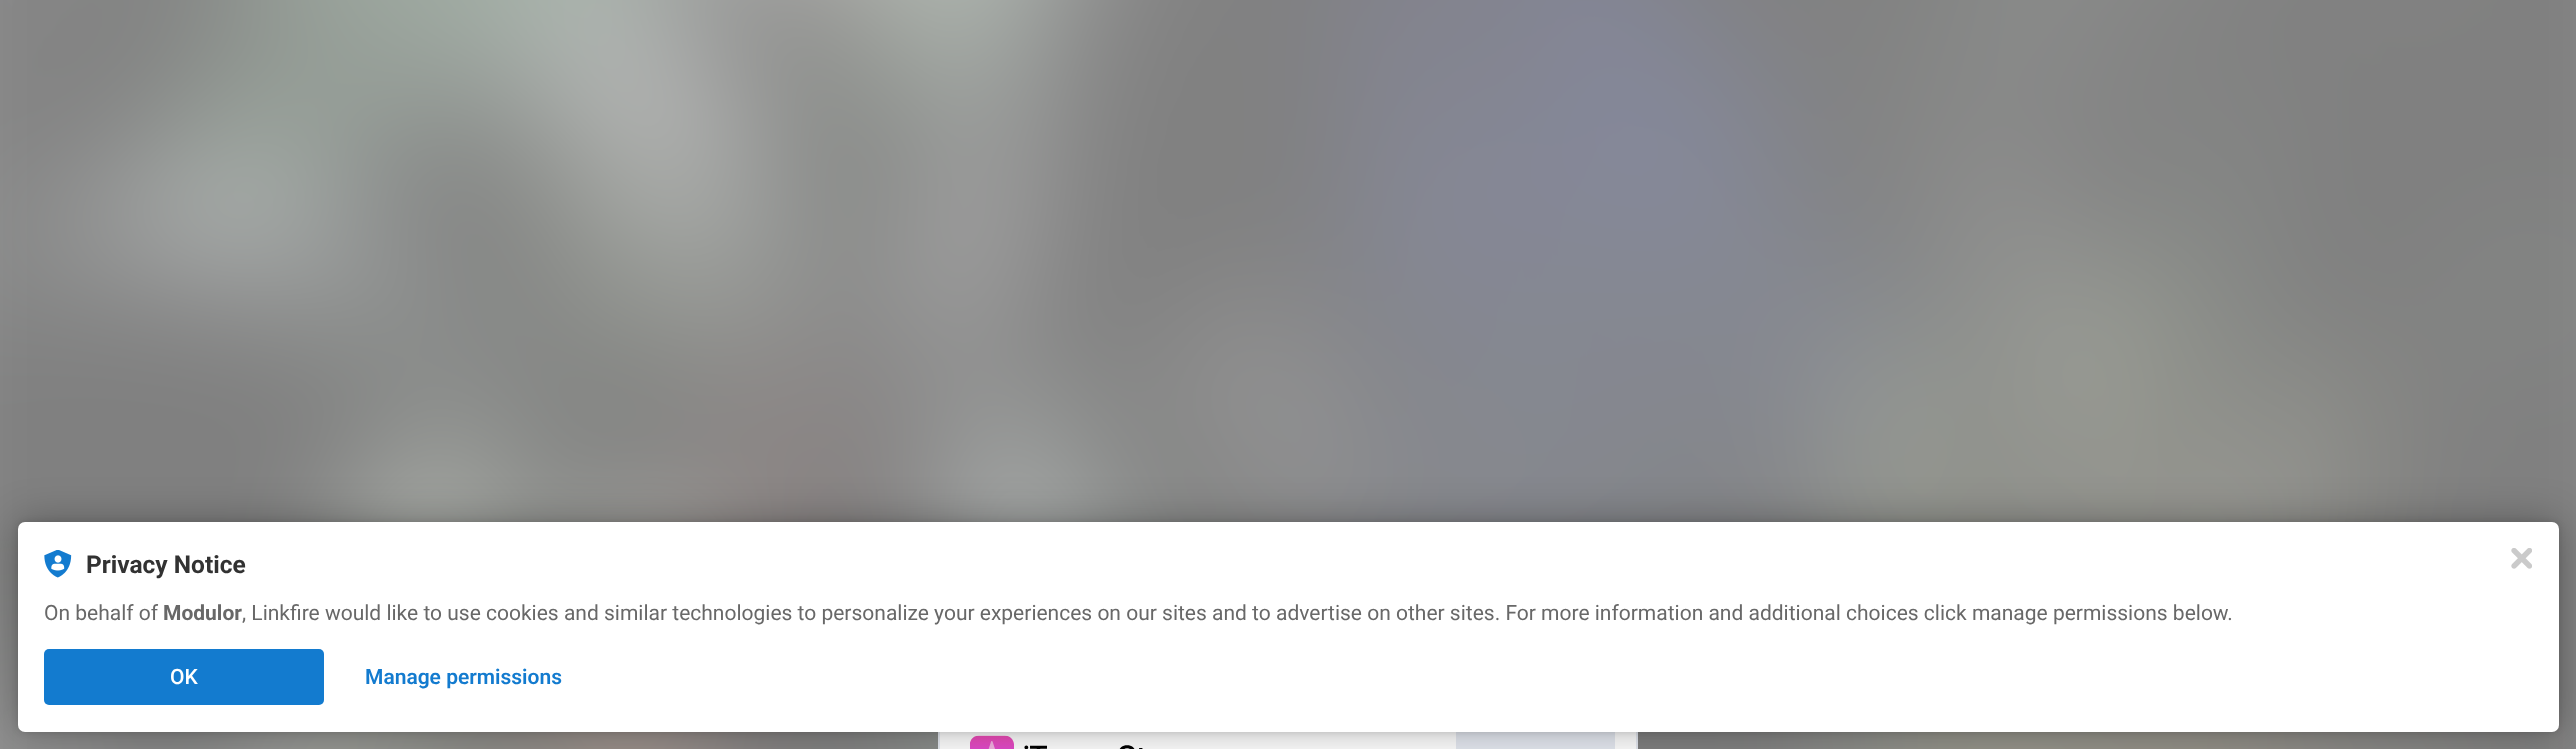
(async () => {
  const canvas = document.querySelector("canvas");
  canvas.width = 2576;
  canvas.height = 749;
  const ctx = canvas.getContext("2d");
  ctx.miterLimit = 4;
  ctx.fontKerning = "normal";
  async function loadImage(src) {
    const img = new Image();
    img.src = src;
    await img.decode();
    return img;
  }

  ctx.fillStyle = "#ffffff";
  ctx.fillRect(0, 0, 2576, 749);
  ctx.drawImage(await loadImage("img/1.png"), 0, 0, 2576, 749);
  ctx.strokeStyle = "#e6eaf2";
  ctx.lineWidth = 2;
  ctx.strokeRect(939, 694, 698, 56);
  ctx.fillRect(940, 732, 696, 17);
  ctx.drawImage(await loadImage("img/4.png"), 970, 735, 173, 14);
  ctx.fillStyle = "#e6eaf2";
  ctx.fillRect(1456, 732, 159, 17);
  ctx.fillStyle = "rgba(0, 0, 0, 0.12)";
  ctx.filter = "blur(3.5px)";
  ctx.beginPath();
  ctx.roundRect(18, 522, 2541, 210, 7);
  ctx.fill();
  ctx.filter = "none";
  ctx.fillStyle = "rgba(0, 0, 0, 0.3)";
  ctx.filter = "blur(21px)";
  ctx.beginPath();
  ctx.roundRect(18, 522, 2541, 210, 7);
  ctx.fill();
  ctx.filter = "none";
  ctx.fillStyle = "#ffffff";
  ctx.beginPath();
  ctx.roundRect(18, 522, 2541, 210, 7);
  ctx.fill();
  ctx.drawImage(await loadImage("img/2.png"), 44, 550, 28, 28);
  ctx.fillStyle = "#137bcf";
  ctx.beginPath();
  ctx.roundRect(44, 649, 280, 56, 5);
  ctx.fill();
  ctx.drawImage(await loadImage("img/3.png"), 2511, 548, 21, 21);
  ctx.font = "bold 24.5px Roboto";
  ctx.fillStyle = "#323232";
  ctx.fillText("Privacy Notice", 86, 573);
  ctx.font = "21px Roboto";
  ctx.fillStyle = "#686868";
  ctx.fillText("On behalf of", 44, 620);
  ctx.font = "bold 21px Roboto";
  ctx.fillText("Modulor", 163, 620);
  ctx.font = "21px Roboto";
  ctx.fillText(", Linkfire would like to use cookies and similar technologies to personalize your experiences on our sites and to advertise on other sites. For more information and additional choices click manage permissions below.", 242, 620);
  ctx.font = "500 21px Roboto";
  ctx.fillStyle = "#ffffff";
  ctx.fillText("OK", 170, 684);
  ctx.font = "600 21px Roboto";
  ctx.fillStyle = "#137bcf";
  ctx.fillText("Manage permissions", 365, 684);
})();
